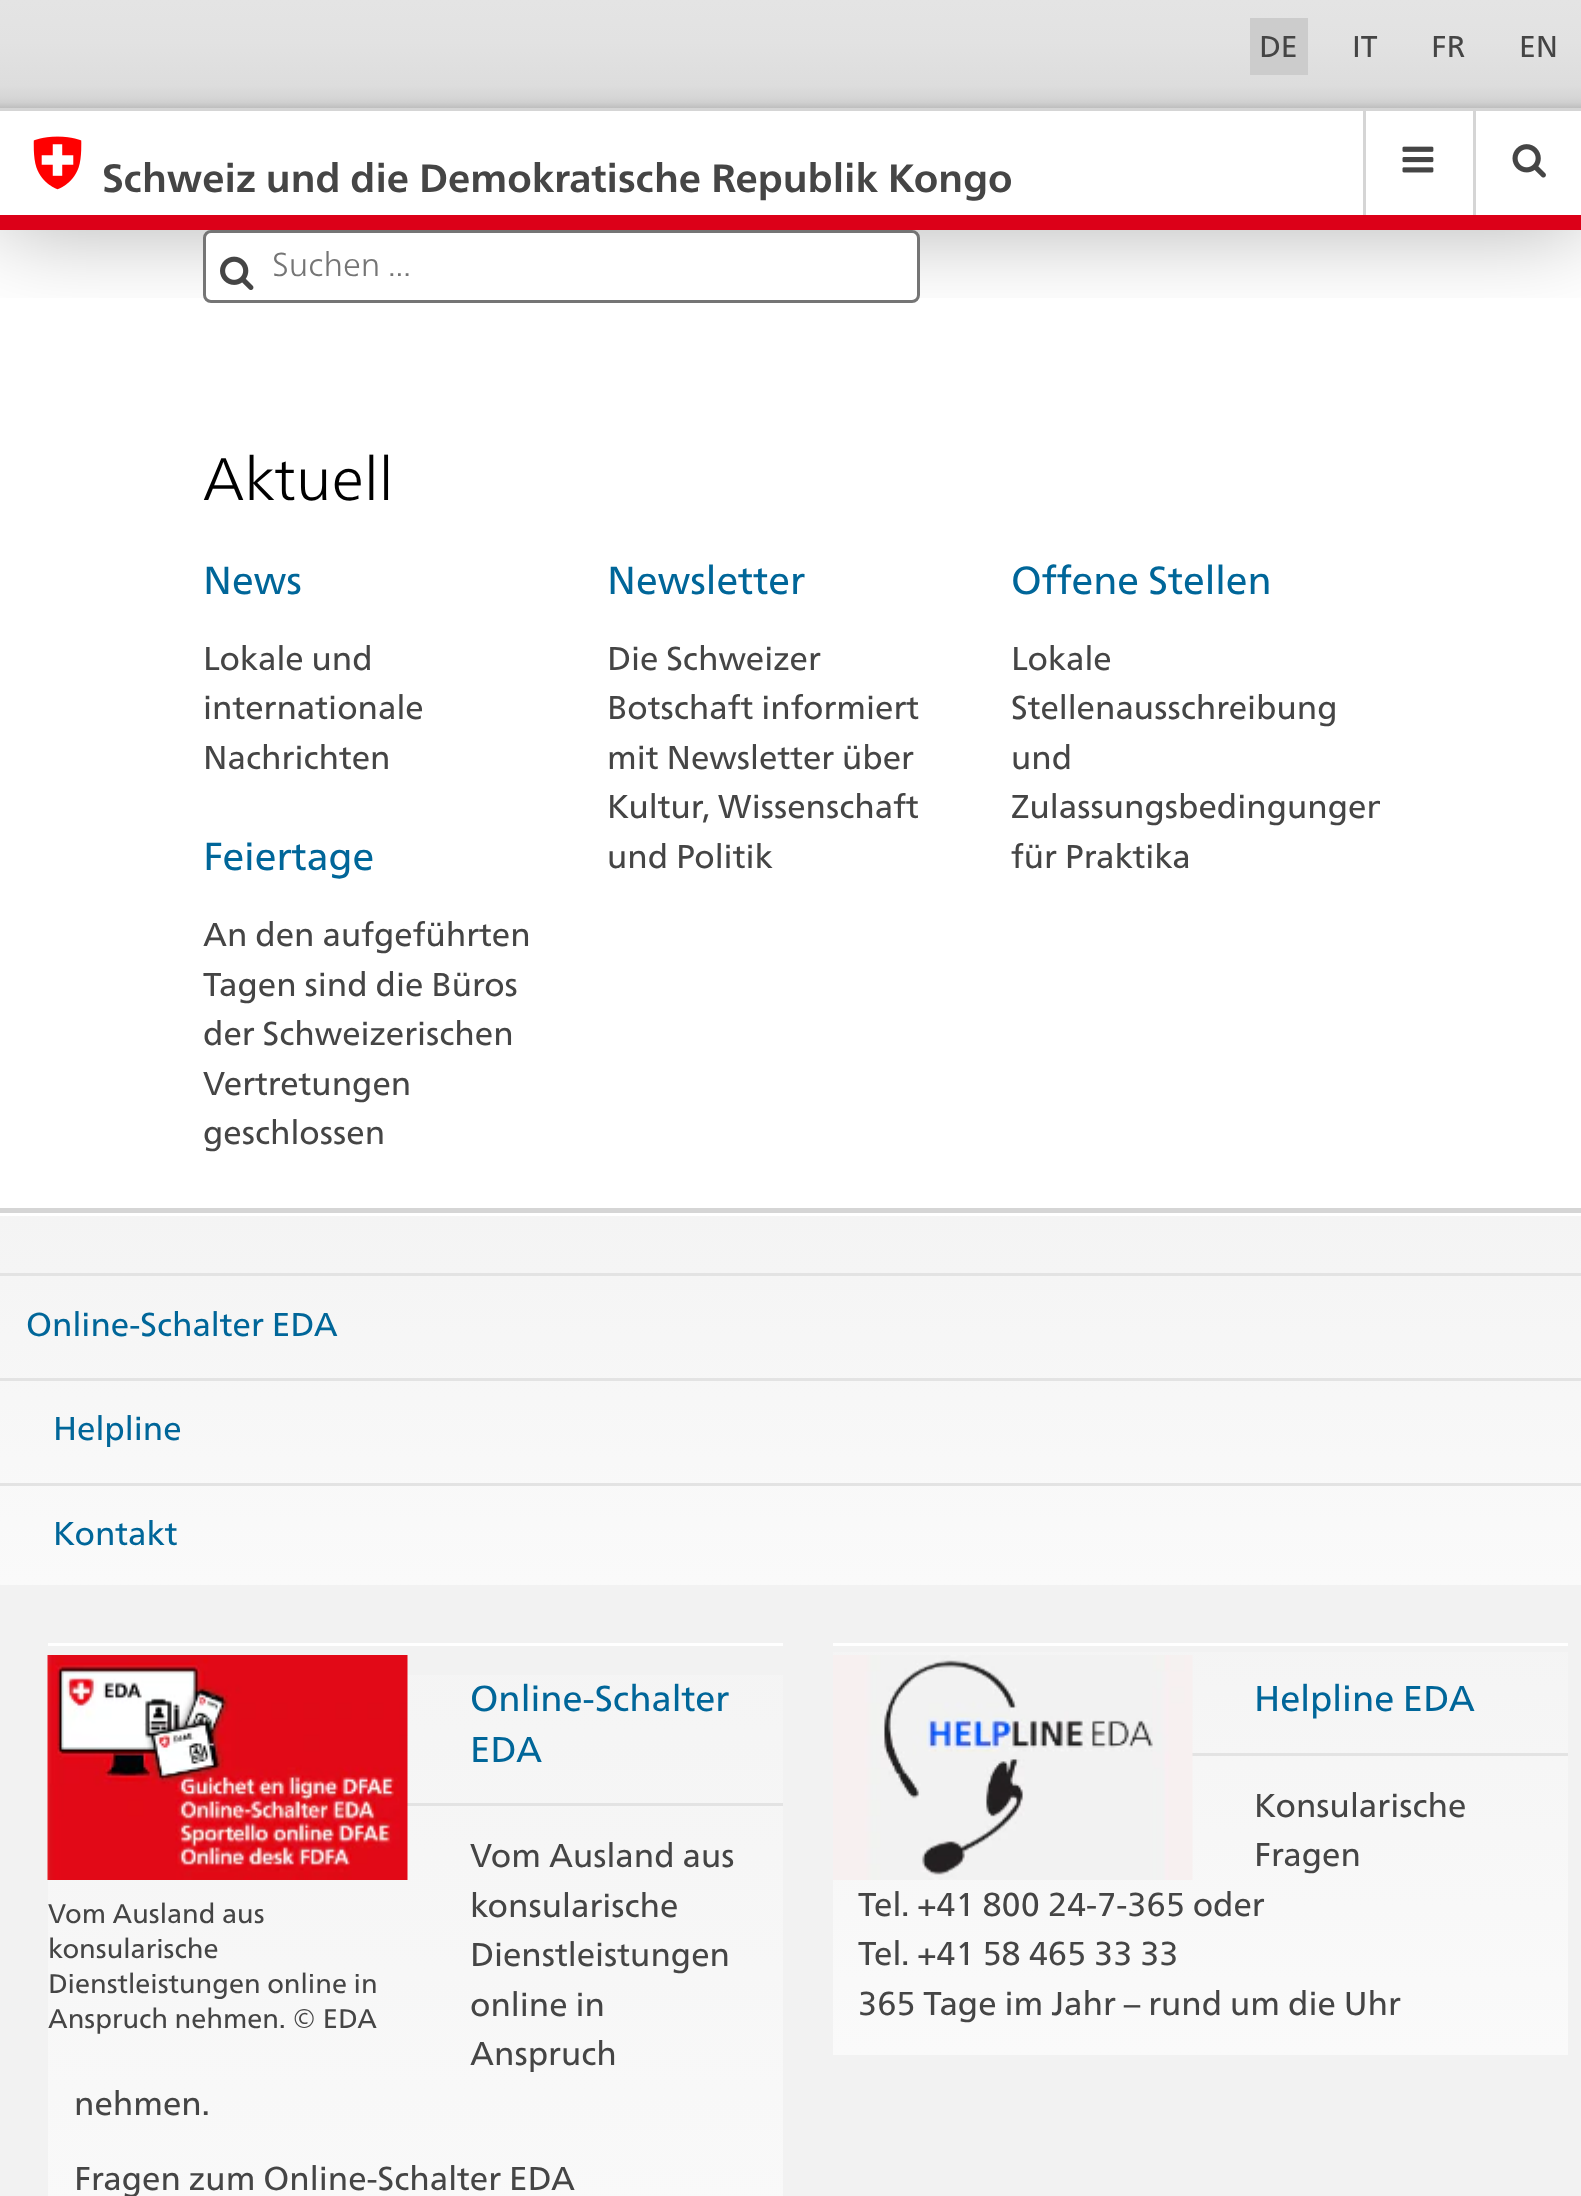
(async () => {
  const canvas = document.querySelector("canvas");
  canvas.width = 1581;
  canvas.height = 2196;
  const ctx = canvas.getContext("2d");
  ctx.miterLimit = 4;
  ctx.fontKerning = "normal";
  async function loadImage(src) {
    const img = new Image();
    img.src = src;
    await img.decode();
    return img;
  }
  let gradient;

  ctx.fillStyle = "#ffffff";
  ctx.fillRect(0, 0, 1581, 2196);
  ctx.save();
  ctx.beginPath();
  ctx.rect(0, 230, 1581, 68);
  ctx.clip();
  ctx.fillStyle = "rgba(0, 0, 0, 0.3)";
  ctx.filter = "blur(45px)";
  ctx.beginPath();
  ctx.rect(0, 110, 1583, 120);
  ctx.fill();
  ctx.filter = "none";
  ctx.restore();
  gradient = ctx.createLinearGradient(791, 0, 791, 108);
  gradient.addColorStop(0, "#e4e4e4");
  gradient.addColorStop(0.39, "#e2e2e2");
  gradient.addColorStop(0.79, "#dddddd");
  gradient.addColorStop(0.91, "#d5d5d5");
  gradient.addColorStop(0.95, "#cfcfcf");
  gradient.addColorStop(1, "#bebebe");
  ctx.fillStyle = gradient;
  ctx.fillRect(0, 0, 1581, 108);
  for (const [x, y, w, h, color] of [
    [1363, 110, 3, 105, "#d5d5d5"],
    [1473, 110, 3, 105, "#d5d5d5"],
    [0, 108, 1581, 3, "#d5d5d5"],
    [1250, 18, 58, 57, "#cccccc"],
    [0, 215, 1581, 15, "#dc0018"],
  ]) {
    ctx.fillStyle = color;
    ctx.fillRect(x, y, w, h);
  }
  ctx.drawImage(await loadImage("img/1.png"), 33, 136, 49, 54);
  ctx.drawImage(await loadImage("img/2.png"), 1402, 146, 32, 27);
  ctx.drawImage(await loadImage("img/3.png"), 1512, 144, 34, 34);
  ctx.fillStyle = "#ffffff";
  ctx.beginPath();
  ctx.roundRect(204.5, 231.5, 714, 70, 6.5);
  ctx.fill();
  ctx.strokeStyle = "#757575";
  ctx.lineWidth = 3;
  ctx.stroke();
  ctx.drawImage(await loadImage("img/4.png"), 220, 256, 34, 34);
  ctx.fillStyle = "#f2f2f2";
  ctx.fillRect(0, 1585, 1581, 611);
  ctx.fillStyle = "#d5d5d5";
  ctx.fillRect(0, 1208, 1581, 5);
  gradient = ctx.createLinearGradient(791, 1212, 791, 1585);
  gradient.addColorStop(0, "#f4f4f4");
  gradient.addColorStop(1, "#fafafa");
  ctx.fillStyle = gradient;
  ctx.fillRect(0, 1216, 1581, 369);
  for (const [x, y, w, h, color] of [
    [0, 1273, 1581, 3, "#e3e3e3"],
    [0, 1378, 1581, 3, "#e3e3e3"],
    [0, 1483, 1581, 3, "#e3e3e3"],
  ]) {
    ctx.fillStyle = color;
    ctx.fillRect(x, y, w, h);
  }
  gradient = ctx.createLinearGradient(415, 1615, 415, 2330);
  gradient.addColorStop(0, "#f4f4f4");
  gradient.addColorStop(1, "#fafafa");
  ctx.fillStyle = gradient;
  ctx.fillRect(48, 1675, 735, 521);
  ctx.fillStyle = "#ffffff";
  ctx.fillRect(48, 1643, 735, 3);
  ctx.fillStyle = "#e3e3e3";
  ctx.fillRect(407, 1803, 376, 3);
  ctx.drawImage(await loadImage("img/5.png"), 47, 1655, 361, 225);
  gradient = ctx.createLinearGradient(1200, 1615, 1200, 2055);
  gradient.addColorStop(0, "#f4f4f4");
  gradient.addColorStop(1, "#fafafa");
  ctx.fillStyle = gradient;
  ctx.fillRect(833, 1652, 735, 403);
  ctx.fillStyle = "#e3e3e3";
  ctx.fillRect(1192, 1753, 376, 3);
  ctx.drawImage(await loadImage("img/6.png"), 833, 1655, 360, 225);
  ctx.fillStyle = "#ffffff";
  ctx.fillRect(833, 1643, 735, 3);
  ctx.font = "30px 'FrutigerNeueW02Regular'";
  ctx.fillStyle = "#454545";
  for (const [text, x, y] of [
    ["DE", 1259, 57],
    ["IT", 1352, 57],
    ["FR", 1431, 57],
    ["EN", 1519, 57],
  ]) {
    ctx.fillText(text, x, y);
  }
  ctx.font = "bold 39.6px 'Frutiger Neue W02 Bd'";
  ctx.fillText("Schweiz und die Demokratische Republik Kongo", 102, 192);
  ctx.font = "300 33px 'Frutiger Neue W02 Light'";
  ctx.fillStyle = "#757575";
  ctx.fillText("Suchen ...", 272, 276);
  ctx.font = "300 60px 'Frutiger Neue W02 Light'";
  ctx.fillStyle = "#000000";
  ctx.fillText("Aktuell", 203, 500);
  ctx.font = "39px 'FrutigerNeueW02Regular'";
  ctx.fillStyle = "#006699";
  ctx.fillText("News", 203, 594);
  ctx.font = "33px 'FrutigerNeueW02Regular'";
  ctx.fillStyle = "#454545";
  for (const [text, x, y] of [
    ["Lokale und", 203, 670],
    ["internationale", 203, 719],
    ["Nachrichten", 203, 769],
  ]) {
    ctx.fillText(text, x, y);
  }
  ctx.font = "39px 'FrutigerNeueW02Regular'";
  ctx.fillStyle = "#006699";
  ctx.fillText("Feiertage", 203, 870);
  ctx.font = "33px 'FrutigerNeueW02Regular'";
  ctx.fillStyle = "#454545";
  for (const [text, x, y] of [
    ["An den aufgeführten", 203, 946],
    ["Tagen sind die Büros", 203, 996],
    ["der Schweizerischen", 203, 1045],
    ["Vertretungen", 203, 1095],
    ["geschlossen", 203, 1144],
  ]) {
    ctx.fillText(text, x, y);
  }
  ctx.font = "39px 'FrutigerNeueW02Regular'";
  ctx.fillStyle = "#006699";
  ctx.fillText("Newsletter", 607, 594);
  ctx.font = "33px 'FrutigerNeueW02Regular'";
  ctx.fillStyle = "#454545";
  for (const [text, x, y] of [
    ["Die Schweizer", 607, 670],
    ["Botschaft informiert", 607, 719],
    ["mit Newsletter über", 607, 769],
    ["Kultur, Wissenschaft", 607, 818],
    ["und Politik", 607, 868],
  ]) {
    ctx.fillText(text, x, y);
  }
  ctx.font = "39px 'FrutigerNeueW02Regular'";
  ctx.fillStyle = "#006699";
  ctx.fillText("Offene Stellen", 1011, 594);
  ctx.font = "33px 'FrutigerNeueW02Regular'";
  ctx.fillStyle = "#454545";
  for (const [text, x, y] of [
    ["Lokale", 1011, 670],
    ["Stellenausschreibung", 1011, 719],
    ["und", 1011, 769],
  ]) {
    ctx.fillText(text, x, y);
  }
  ctx.save();
  ctx.beginPath();
  ctx.rect(203, 423, 1177, 737);
  ctx.clip();
  ctx.fillText("Zulassungsbedingungen", 1011, 818);
  ctx.restore();
  ctx.fillText("für Praktika", 1011, 868);
  ctx.fillStyle = "#006699";
  for (const [text, x, y] of [
    ["Online-Schalter EDA", 26, 1336],
    ["Helpline", 53, 1440],
    ["Kontakt", 53, 1545],
  ]) {
    ctx.fillText(text, x, y);
  }
  ctx.font = "36px 'FrutigerNeueW02Regular'";
  ctx.fillText("Online-Schalter", 470, 1711);
  ctx.fillText("EDA", 470, 1762);
  ctx.font = "33px 'FrutigerNeueW02Regular'";
  ctx.fillStyle = "#454545";
  for (const [text, x, y] of [
    ["Vom Ausland aus", 470, 1867],
    ["konsularische", 470, 1917],
    ["Dienstleistungen", 470, 1966],
    ["online in", 470, 2016],
    ["Anspruch", 470, 2065],
    ["nehmen.", 74, 2115],
  ]) {
    ctx.fillText(text, x, y);
  }
  ctx.font = "27px 'FrutigerNeueW02Regular'";
  for (const [text, x, y] of [
    ["Vom Ausland aus", 48, 1923],
    ["konsularische", 48, 1958],
    ["Dienstleistungen online in", 48, 1993],
    ["Anspruch nehmen. © EDA", 48, 2028],
  ]) {
    ctx.fillText(text, x, y);
  }
  ctx.font = "33px 'FrutigerNeueW02Regular'";
  ctx.fillText("Fragen zum Online-Schalter EDA", 74, 2190);
  ctx.font = "36px 'FrutigerNeueW02Regular'";
  ctx.fillStyle = "#006699";
  ctx.fillText("Helpline EDA", 1254, 1711);
  ctx.font = "33px 'FrutigerNeueW02Regular'";
  ctx.fillStyle = "#454545";
  for (const [text, x, y] of [
    ["Konsularische", 1254, 1817],
    ["Fragen", 1254, 1866],
    ["Tel. +41 800 24-7-365 oder", 858, 1916],
    ["Tel. +41 58 465 33 33", 858, 1965],
    ["365 Tage im Jahr – rund um die Uhr", 858, 2015],
  ]) {
    ctx.fillText(text, x, y);
  }
})();
